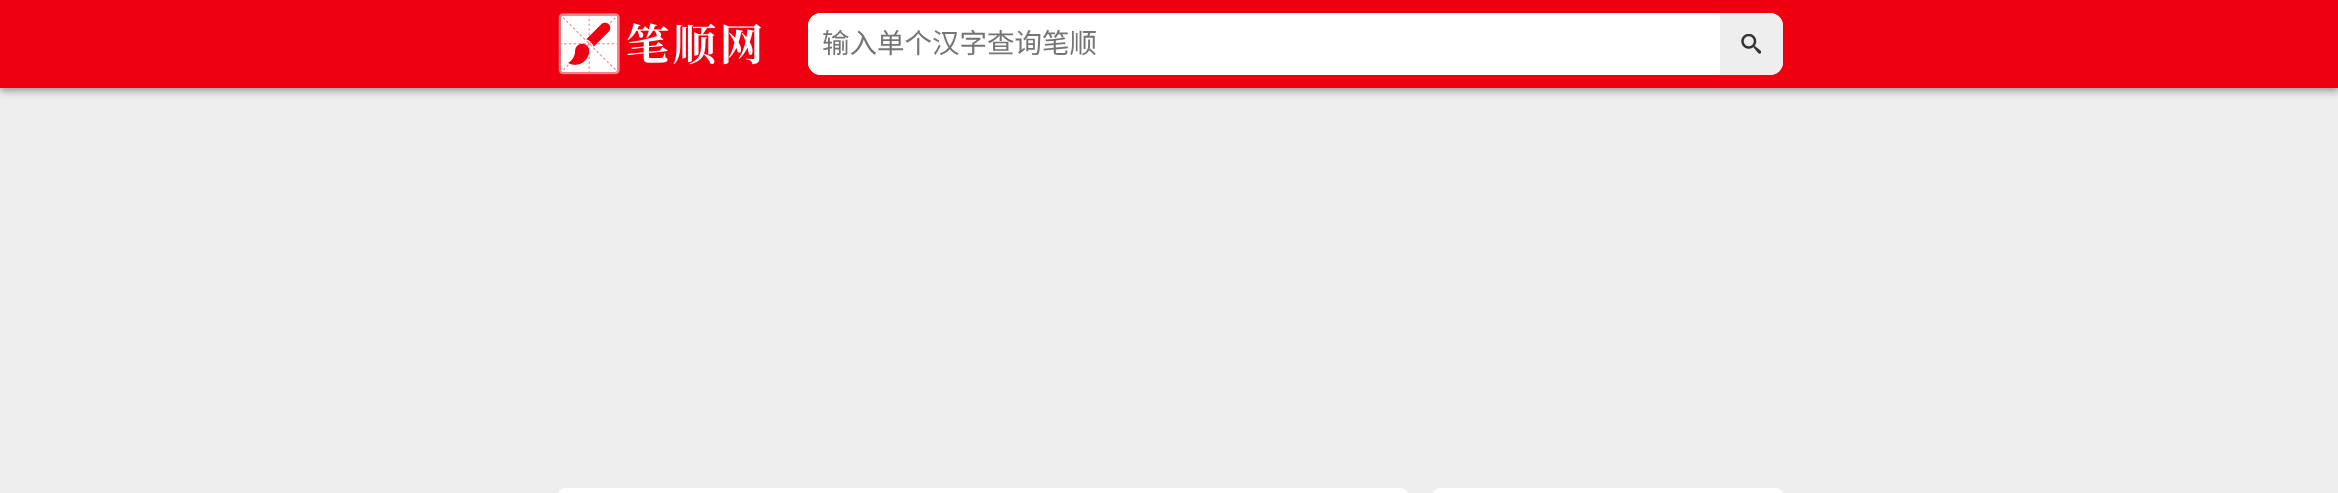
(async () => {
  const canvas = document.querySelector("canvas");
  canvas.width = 2338;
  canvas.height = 493;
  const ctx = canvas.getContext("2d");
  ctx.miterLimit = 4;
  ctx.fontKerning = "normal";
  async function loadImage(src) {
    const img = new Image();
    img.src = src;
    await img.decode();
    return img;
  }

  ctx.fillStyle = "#eeeeee";
  ctx.fillRect(0, 0, 2338, 493);
  ctx.fillStyle = "rgba(0, 0, 0, 0.12)";
  ctx.filter = "blur(6px)";
  ctx.beginPath();
  ctx.rect(0, 1, 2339, 88);
  ctx.fill();
  ctx.filter = "none";
  ctx.fillStyle = "rgba(0, 0, 0, 0.14)";
  ctx.filter = "blur(3px)";
  ctx.beginPath();
  ctx.rect(0, 5, 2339, 88);
  ctx.fill();
  ctx.filter = "none";
  ctx.fillStyle = "rgba(0, 0, 0, 0.2)";
  ctx.filter = "blur(2.5px)";
  ctx.beginPath();
  ctx.rect(1, 4, 2337, 85);
  ctx.fill();
  ctx.filter = "none";
  ctx.fillStyle = "#ef0010";
  ctx.fillRect(0, 0, 2338, 88);
  ctx.drawImage(await loadImage("img/1.png"), 558, 13, 203, 62);
  ctx.fillStyle = "#ffffff";
  ctx.beginPath();
  ctx.roundRect(808, 13, 975, 62, 13);
  ctx.fill();
  ctx.beginPath();
  ctx.roundRect(808, 13, 900, 62, 13);
  ctx.fill();
  ctx.fillStyle = "#eeeeee";
  ctx.beginPath();
  ctx.roundRect(1720, 13, 63, 62, [0, 13, 13, 0]);
  ctx.fill();
  ctx.drawImage(await loadImage("img/2.png"), 1741, 34, 20, 20);
  ctx.fillStyle = "#ffffff";
  ctx.beginPath();
  ctx.roundRect(558, 488, 850, 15, 10);
  ctx.fill();
  ctx.beginPath();
  ctx.roundRect(1433, 488, 350, 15, 10);
  ctx.fill();
  ctx.font = "27.5px Noto Sans CJK SC";
  ctx.fillStyle = "#757575";
  ctx.fillText("输入单个汉字查询笔顺", 822, 53);
})();
